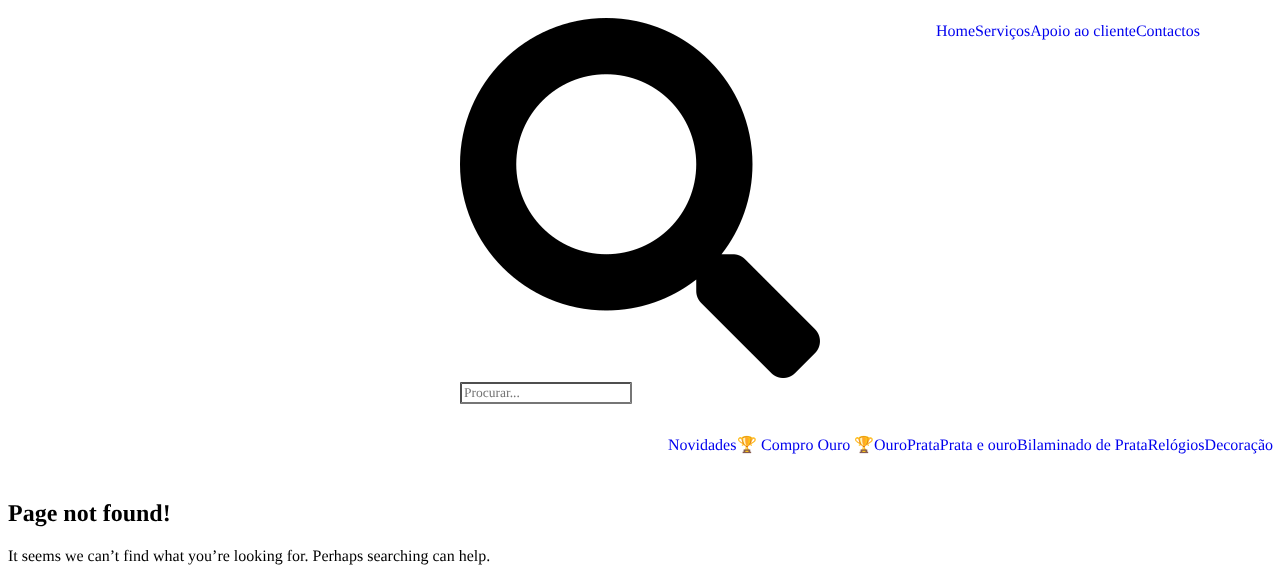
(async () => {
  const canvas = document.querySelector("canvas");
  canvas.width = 1281;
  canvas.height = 577;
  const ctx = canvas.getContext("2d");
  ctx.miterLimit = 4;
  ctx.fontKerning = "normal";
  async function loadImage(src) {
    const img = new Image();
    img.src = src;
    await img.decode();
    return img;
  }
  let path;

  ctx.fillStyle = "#ffffff";
  ctx.fillRect(0, 0, 1281, 577);
  ctx.drawImage(await loadImage("img/1.png"), 460, 18, 360, 360);
  ctx.fillStyle = "#4f4f4f";
  path = new Path2D("M460 382H632L630 384H462Z");
  ctx.fill(path);
  ctx.fillStyle = "#767676";
  path = new Path2D("M632 382V404L630 402V384Z");
  ctx.fill(path);
  path = new Path2D("M632 404H460L462 402H630Z");
  ctx.fill(path);
  ctx.fillStyle = "#4f4f4f";
  path = new Path2D("M460 404V382L462 384V402Z");
  ctx.fill(path);
  ctx.font = "16px Liberation Serif";
  ctx.fillStyle = "#0000ee";
  ctx.fillText("HomeServiçosApoio ao clienteContactos", 936, 36);
  ctx.font = "13.5px Liberation Serif";
  ctx.fillStyle = "#757575";
  ctx.fillText("Procurar...", 464, 397);
  ctx.font = "16px Liberation Serif";
  ctx.fillStyle = "#0000ee";
  ctx.fillText("Novidades", 668, 450);
  ctx.font = "16px Noto Color Emoji";
  ctx.fillText("🏆", 737, 450);
  ctx.font = "16px Liberation Serif";
  ctx.fillText("Compro Ouro", 761, 450);
  ctx.font = "16px Noto Color Emoji";
  ctx.fillText("🏆", 854, 450);
  ctx.font = "16px Liberation Serif";
  ctx.fillText("OuroPrataPrata e ouroBilaminado de PrataRelógiosDecoração", 874, 450);
  ctx.font = "bold 24px Liberation Serif";
  ctx.fillStyle = "#000000";
  ctx.fillText("Page not found!", 8, 521);
  ctx.font = "16px Liberation Serif";
  ctx.fillText("It seems we can’t find what you’re looking for. Perhaps searching can help.", 8, 561);
})();
